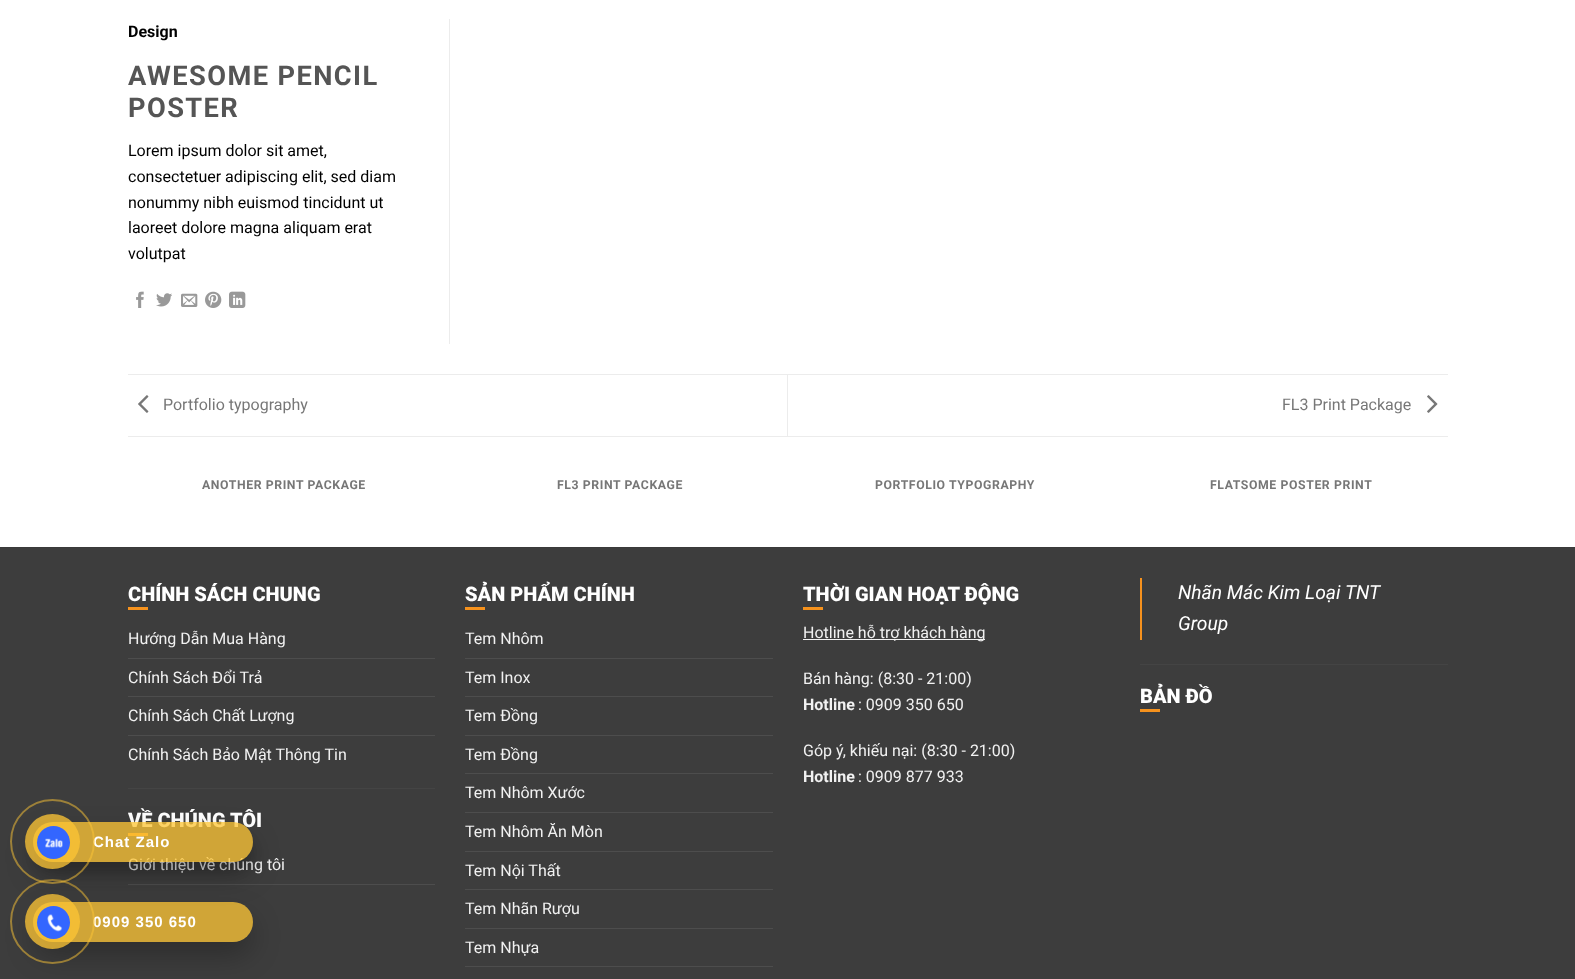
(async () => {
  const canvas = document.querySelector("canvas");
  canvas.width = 1575;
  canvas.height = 979;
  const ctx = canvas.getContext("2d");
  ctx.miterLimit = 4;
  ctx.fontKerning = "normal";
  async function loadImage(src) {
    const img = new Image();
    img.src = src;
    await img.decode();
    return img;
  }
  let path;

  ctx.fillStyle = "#ffffff";
  ctx.fillRect(0, 0, 1575, 979);
  ctx.fillStyle = "#ececec";
  ctx.fillRect(449, 19, 1, 325);
  ctx.drawImage(await loadImage("img/1.png"), 136, 291, 8, 17);
  ctx.drawImage(await loadImage("img/2.png"), 156, 293, 16, 14);
  ctx.drawImage(await loadImage("img/3.png"), 181, 293, 17, 14);
  ctx.drawImage(await loadImage("img/4.png"), 205, 291, 17, 17);
  ctx.drawImage(await loadImage("img/5.png"), 229, 291, 17, 17);
  ctx.fillRect(128, 374, 1320, 1);
  ctx.fillRect(128, 436, 1320, 1);
  ctx.drawImage(await loadImage("img/6.png"), 138, 395, 11, 18);
  ctx.fillRect(787, 375, 1, 61);
  ctx.drawImage(await loadImage("img/7.png"), 1427, 395, 11, 18);
  for (const [x, y, w, h, color] of [
    [0, 548, 1575, 431, "#3d3d3d"],
    [0, 547, 1575, 1, "#3a3a3a"],
    [128, 607, 20, 3, "#f6921d"],
    [128, 658, 307, 1, "#4d4d4d"],
    [128, 696, 307, 1, "#4d4d4d"],
    [128, 735, 307, 1, "#4d4d4d"],
    [128, 788, 307, 1, "#444444"],
    [128, 833, 20, 3, "#f6921d"],
    [128, 884, 307, 1, "#4d4d4d"],
    [465, 607, 20, 3, "#f6921d"],
    [465, 658, 308, 1, "#4d4d4d"],
    [465, 696, 308, 1, "#4d4d4d"],
    [465, 735, 308, 1, "#4d4d4d"],
    [465, 773, 308, 1, "#4d4d4d"],
    [465, 812, 308, 1, "#4d4d4d"],
    [465, 851, 308, 1, "#4d4d4d"],
    [465, 889, 308, 1, "#4d4d4d"],
    [465, 928, 308, 1, "#4d4d4d"],
    [465, 966, 308, 1, "#4d4d4d"],
    [803, 607, 20, 3, "#f6921d"],
    [803, 639, 182, 1, "#f1f1f1"],
    [1140, 578, 2, 62, "#f6911d"],
    [1140, 664, 308, 1, "#444444"],
    [1140, 709, 20, 3, "#f6921d"],
  ]) {
    ctx.fillStyle = color;
    ctx.fillRect(x, y, w, h);
  }
  ctx.save();
  path = new Path2D("M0 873H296V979H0ZM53 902H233C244 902 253 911 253 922C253 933 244 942 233 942H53C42 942 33 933 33 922C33 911 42 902 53 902Z");
  ctx.clip(path, "evenodd");
  ctx.fillStyle = "rgba(0, 0, 0, 0.25)";
  ctx.filter = "blur(14px)";
  ctx.beginPath();
  ctx.roundRect(33, 916, 220, 40, 20);
  ctx.fill();
  ctx.filter = "none";
  ctx.restore();
  ctx.fillStyle = "rgba(253, 197, 53, 0.77)";
  ctx.beginPath();
  ctx.roundRect(33, 902, 220, 40, 20);
  ctx.fill();
  ctx.font = "bold 16px Roboto";
  ctx.fillStyle = "#000000";
  ctx.fillText("Design", 128, 37);
  ctx.letterSpacing = "1.4px";
  ctx.font = "bold 27.25px Roboto";
  ctx.fillStyle = "#555555";
  ctx.fillText("AWESOME PENCIL", 128, 85);
  ctx.fillText("POSTER", 128, 117);
  ctx.letterSpacing = "0px";
  ctx.font = "16px Roboto";
  ctx.fillStyle = "#000000";
  for (const [text, x, y] of [
    ["Lorem ipsum dolor sit amet,", 128, 156],
    ["consectetuer adipiscing elit, sed diam", 128, 182],
    ["nonummy nibh euismod tincidunt ut", 128, 208],
    ["laoreet dolore magna aliquam erat", 128, 233],
    ["volutpat", 128, 259],
  ]) {
    ctx.fillText(text, x, y);
  }
  ctx.fillStyle = "#777777";
  ctx.fillText("Portfolio typography", 163, 410);
  ctx.fillText("FL3 Print Package", 1282, 410);
  ctx.letterSpacing = "0.6px";
  ctx.font = "bold 12.25px Roboto";
  for (const [text, x, y] of [
    ["ANOTHER PRINT PACKAGE", 202, 489],
    ["FL3 PRINT PACKAGE", 557, 489],
    ["PORTFOLIO TYPOGRAPHY", 875, 489],
    ["FLATSOME POSTER PRINT", 1210, 489],
  ]) {
    ctx.fillText(text, x, y);
  }
  ctx.letterSpacing = "0px";
  ctx.font = "900 20px Roboto";
  ctx.fillStyle = "#ffffff";
  ctx.fillText("CHÍNH SÁCH CHUNG", 128, 601);
  ctx.font = "16px Roboto";
  ctx.fillStyle = "#f1f1f1";
  for (const [text, x, y] of [
    ["Hướng Dẫn Mua Hàng", 128, 644],
    ["Chính Sách Đổi Trả", 128, 683],
    ["Chính Sách Chất Lượng", 128, 721],
    ["Chính Sách Bảo Mật Thông Tin", 128, 760],
  ]) {
    ctx.fillText(text, x, y);
  }
  ctx.font = "900 20px Roboto";
  ctx.fillStyle = "#ffffff";
  ctx.fillText("VỀ CHÚNG TÔI", 128, 827);
  ctx.font = "16px Roboto";
  ctx.fillStyle = "#f1f1f1";
  ctx.fillText("Giới thiệu về chúng tôi", 128, 870);
  ctx.font = "900 20px Roboto";
  ctx.fillStyle = "#ffffff";
  ctx.fillText("SẢN PHẨM CHÍNH", 465, 601);
  ctx.font = "16px Roboto";
  ctx.fillStyle = "#f1f1f1";
  for (const [text, x, y] of [
    ["Tem Nhôm", 465, 644],
    ["Tem Inox", 465, 683],
    ["Tem Đồng", 465, 721],
    ["Tem Đồng", 465, 760],
    ["Tem Nhôm Xước", 465, 798],
    ["Tem Nhôm Ăn Mòn", 465, 837],
    ["Tem Nội Thất", 465, 876],
    ["Tem Nhãn Rượu", 465, 914],
    ["Tem Nhựa", 465, 953],
  ]) {
    ctx.fillText(text, x, y);
  }
  ctx.font = "900 20px Roboto";
  ctx.fillStyle = "#ffffff";
  ctx.fillText("THỜI GIAN HOẠT ĐỘNG", 803, 601);
  ctx.font = "16px Roboto";
  ctx.fillStyle = "#f1f1f1";
  ctx.fillText("Hotline hỗ trợ khách hàng", 803, 638);
  ctx.fillText("Bán hàng: (8:30 - 21:00)", 803, 684);
  ctx.font = "bold 16px Roboto";
  ctx.fillText("Hotline", 803, 710);
  ctx.font = "16px Roboto";
  ctx.fillText(": 0909 350 650", 858, 710);
  ctx.fillText("Góp ý, khiếu nại: (8:30 - 21:00)", 803, 756);
  ctx.font = "bold 16px Roboto";
  ctx.fillText("Hotline", 803, 782);
  ctx.font = "16px Roboto";
  ctx.fillText(": 0909 877 933", 858, 782);
  ctx.font = "italic 19.25px Roboto";
  ctx.fillStyle = "#ffffff";
  ctx.fillText("Nhãn Mác Kim Loại TNT", 1178, 599);
  ctx.fillText("Group", 1178, 630);
  ctx.font = "900 20px Roboto";
  ctx.fillText("BẢN ĐỒ", 1140, 703);
  ctx.letterSpacing = "1px";
  ctx.font = "bold 15px Liberation Sans";
  ctx.fillText("0909 350 650", 93, 927);
  ctx.beginPath();
  ctx.arc(52.5, 921.5, 41.5, 0, Math.PI * 2);
  ctx.strokeStyle = "rgba(253, 197, 53, 0.5)";
  ctx.lineWidth = 2;
  ctx.stroke();
  ctx.fillStyle = "rgba(253, 197, 53, 0.77)";
  ctx.beginPath();
  ctx.arc(52.5, 921.5, 27.5, 0, Math.PI * 2);
  ctx.fill();
  ctx.fillStyle = "#3366ff";
  ctx.beginPath();
  ctx.arc(53.5, 922.5, 16.5, 0, Math.PI * 2);
  ctx.fill();
  ctx.drawImage(await loadImage("img/9.png"), 47, 914, 16, 18);
  ctx.save();
  path = new Path2D("M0 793H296V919H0ZM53 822H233C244 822 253 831 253 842C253 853 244 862 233 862H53C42 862 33 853 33 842C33 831 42 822 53 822Z");
  ctx.clip(path, "evenodd");
  ctx.fillStyle = "rgba(0, 0, 0, 0.25)";
  ctx.filter = "blur(14px)";
  ctx.beginPath();
  ctx.roundRect(33, 836, 220, 40, 20);
  ctx.fill();
  ctx.filter = "none";
  ctx.restore();
  ctx.save();
  path = new Path2D("M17 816H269V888H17ZM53 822H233C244 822 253 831 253 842C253 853 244 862 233 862H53C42 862 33 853 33 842C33 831 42 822 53 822Z");
  ctx.clip(path, "evenodd");
  ctx.fillStyle = "rgba(0, 0, 0, 0.1)";
  ctx.filter = "blur(5px)";
  ctx.beginPath();
  ctx.roundRect(33, 832, 220, 40, 20);
  ctx.fill();
  ctx.filter = "none";
  ctx.restore();
  ctx.fillStyle = "rgba(253, 197, 53, 0.77)";
  ctx.beginPath();
  ctx.roundRect(33, 822, 220, 40, 20);
  ctx.fill();
  ctx.fillStyle = "#ffffff";
  ctx.fillText("Chat Zalo", 93, 847);
  ctx.beginPath();
  ctx.arc(52.5, 841.5, 41.5, 0, Math.PI * 2);
  ctx.stroke();
  ctx.fillStyle = "rgba(253, 197, 53, 0.77)";
  ctx.beginPath();
  ctx.arc(52.5, 841.5, 27.5, 0, Math.PI * 2);
  ctx.fill();
  ctx.fillStyle = "#3366ff";
  ctx.beginPath();
  ctx.arc(53.5, 842.5, 16.5, 0, Math.PI * 2);
  ctx.fill();
  ctx.drawImage(await loadImage("img/8.png"), 45, 838, 18, 10);
})();
